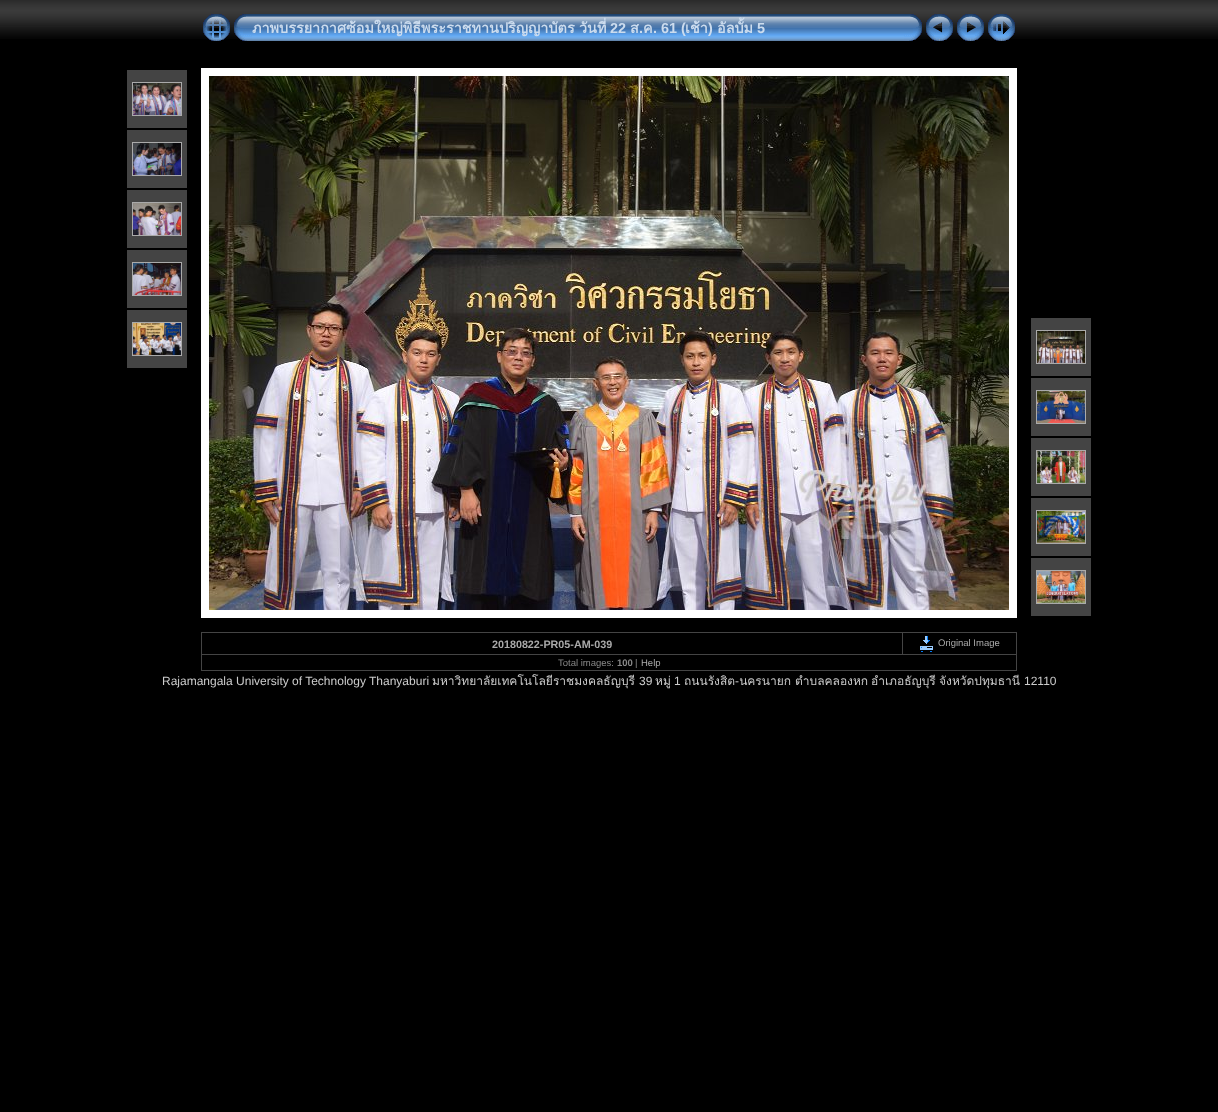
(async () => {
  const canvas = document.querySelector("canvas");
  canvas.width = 1218;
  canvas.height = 1112;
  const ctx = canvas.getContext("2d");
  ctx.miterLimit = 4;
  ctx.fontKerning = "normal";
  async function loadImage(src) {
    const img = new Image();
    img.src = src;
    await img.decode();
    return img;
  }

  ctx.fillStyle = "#000000";
  ctx.fillRect(0, 0, 1218, 1112);
  ctx.drawImage(await loadImage("img/1.png"), 0, 0, 1218, 39);
  ctx.drawImage(await loadImage("img/2.png"), 203, 14, 27, 27);
  ctx.drawImage(await loadImage("img/3.png"), 234, 14, 18, 27);
  ctx.drawImage(await loadImage("img/4.png"), 252, 14, 652, 27);
  ctx.drawImage(await loadImage("img/5.png"), 904, 14, 18, 27);
  ctx.drawImage(await loadImage("img/6.png"), 926, 14, 27, 27);
  ctx.drawImage(await loadImage("img/7.png"), 957, 14, 27, 27);
  ctx.drawImage(await loadImage("img/8.png"), 988, 14, 27, 27);
  ctx.fillStyle = "#444444";
  ctx.fillRect(127, 70, 60, 58);
  ctx.strokeStyle = "#aaaaaa";
  ctx.strokeRect(132.5, 82.5, 49, 33);
  ctx.drawImage(await loadImage("img/9.png"), 133, 83, 48, 32);
  ctx.fillRect(127, 130, 60, 58);
  ctx.strokeRect(132.5, 142.5, 49, 33);
  ctx.drawImage(await loadImage("img/10.png"), 133, 143, 48, 32);
  ctx.fillRect(127, 190, 60, 58);
  ctx.strokeRect(132.5, 202.5, 49, 33);
  ctx.drawImage(await loadImage("img/11.png"), 133, 203, 48, 32);
  ctx.fillRect(127, 250, 60, 58);
  ctx.strokeRect(132.5, 262.5, 49, 33);
  ctx.drawImage(await loadImage("img/12.png"), 133, 263, 48, 32);
  ctx.fillRect(127, 310, 60, 58);
  ctx.strokeRect(132.5, 322.5, 49, 33);
  ctx.drawImage(await loadImage("img/13.png"), 133, 323, 48, 32);
  ctx.strokeStyle = "#ffffff";
  ctx.lineWidth = 8;
  ctx.strokeRect(205, 72, 808, 542);
  ctx.drawImage(await loadImage("img/14.png"), 209, 76, 800, 534);
  ctx.fillRect(1031, 318, 60, 58);
  ctx.strokeStyle = "#aaaaaa";
  ctx.lineWidth = 1;
  ctx.strokeRect(1036.5, 330.5, 49, 33);
  ctx.drawImage(await loadImage("img/15.png"), 1037, 331, 48, 32);
  ctx.fillRect(1031, 378, 60, 58);
  ctx.strokeRect(1036.5, 390.5, 49, 33);
  ctx.drawImage(await loadImage("img/16.png"), 1037, 391, 48, 32);
  ctx.fillRect(1031, 438, 60, 58);
  ctx.strokeRect(1036.5, 450.5, 49, 33);
  ctx.drawImage(await loadImage("img/17.png"), 1037, 451, 48, 32);
  ctx.fillRect(1031, 498, 60, 58);
  ctx.strokeRect(1036.5, 510.5, 49, 33);
  ctx.drawImage(await loadImage("img/18.png"), 1037, 511, 48, 32);
  ctx.fillRect(1031, 558, 60, 58);
  ctx.strokeRect(1036.5, 570.5, 49, 33);
  ctx.drawImage(await loadImage("img/19.png"), 1037, 571, 48, 32);
  for (const [x, y, w, h, color] of [
    [201, 632, 816, 1, "#444444"],
    [1016, 632, 1, 39, "#444444"],
    [201, 670, 816, 1, "#444444"],
    [201, 632, 1, 39, "#444444"],
    [201, 654, 816, 1, "#444444"],
    [902, 632, 1, 23, "#444444"],
  ]) {
    ctx.fillStyle = color;
    ctx.fillRect(x, y, w, h);
  }
  ctx.drawImage(await loadImage("img/20.png"), 920, 636, 13, 16);
  ctx.font = "bold 14.4px Loma";
  ctx.fillStyle = "#ccdcee";
  ctx.fillText("ภาพบรรยากาศซ้อมใหญ่พิธีพระราชทานปริญญาบัตร", 252, 33);
  ctx.fillText("วันที่", 579, 33);
  ctx.font = "bold 14.4px Liberation Sans";
  ctx.fillText("22", 610, 33);
  ctx.font = "bold 14.4px Loma";
  ctx.fillText("ส", 630, 33);
  ctx.font = "bold 14.4px Liberation Sans";
  ctx.fillText(".", 639, 33);
  ctx.font = "bold 14.4px Loma";
  ctx.fillText("ค", 643, 33);
  ctx.font = "bold 14.4px Liberation Sans";
  ctx.fillText(". 61 (", 653, 33);
  ctx.font = "bold 14.4px Loma";
  ctx.fillText("เช้า", 685, 33);
  ctx.font = "bold 14.4px Liberation Sans";
  ctx.fillText(")", 708, 33);
  ctx.font = "bold 14.4px Loma";
  ctx.fillText("อัลบั้ม", 717, 33);
  ctx.font = "bold 14.4px Liberation Sans";
  ctx.fillText("5", 757, 33);
  ctx.font = "bold 10.75px Liberation Sans";
  ctx.fillStyle = "#aaaaaa";
  ctx.fillText("20180822-PR05-AM-039", 492, 648);
  ctx.font = "9.5px Liberation Sans";
  ctx.fillText("Original Image", 938, 646);
  ctx.fillStyle = "#888888";
  ctx.fillText("Total images:", 558, 666);
  ctx.font = "bold 9.5px Liberation Sans";
  ctx.fillText("100", 617, 666);
  ctx.font = "9.5px Liberation Sans";
  ctx.fillText("|", 635, 666);
  ctx.fillStyle = "#aaaaaa";
  ctx.fillText("Help", 641, 666);
  ctx.font = "12px Liberation Sans";
  ctx.fillStyle = "#cccccc";
  ctx.fillText("Rajamangala University of Technology Thanyaburi", 162, 685);
  ctx.font = "12px Loma";
  ctx.fillText("มหาวิทยาลัยเทคโนโลยีราชมงคลธัญบุรี", 432, 685);
  ctx.font = "12px Liberation Sans";
  ctx.fillText("39", 639, 685);
  ctx.font = "12px Loma";
  ctx.fillText("หมู่", 655, 685);
  ctx.font = "12px Liberation Sans";
  ctx.fillText("1", 674, 685);
  ctx.font = "12px Loma";
  for (const [text, x, y] of [
    ["ถนนรังสิต นครนายก", 684, 685],
    ["ตำบลคลองหก", 795, 685],
    ["อำเภอธัญบุรี", 871, 685],
    ["จังหวัดปทุมธานี", 939, 685],
  ]) {
    ctx.fillText(text, x, y);
  }
  ctx.font = "12px Liberation Sans";
  ctx.fillText("12110", 1024, 685);
  ctx.fillText("-", 735, 685);
})();
